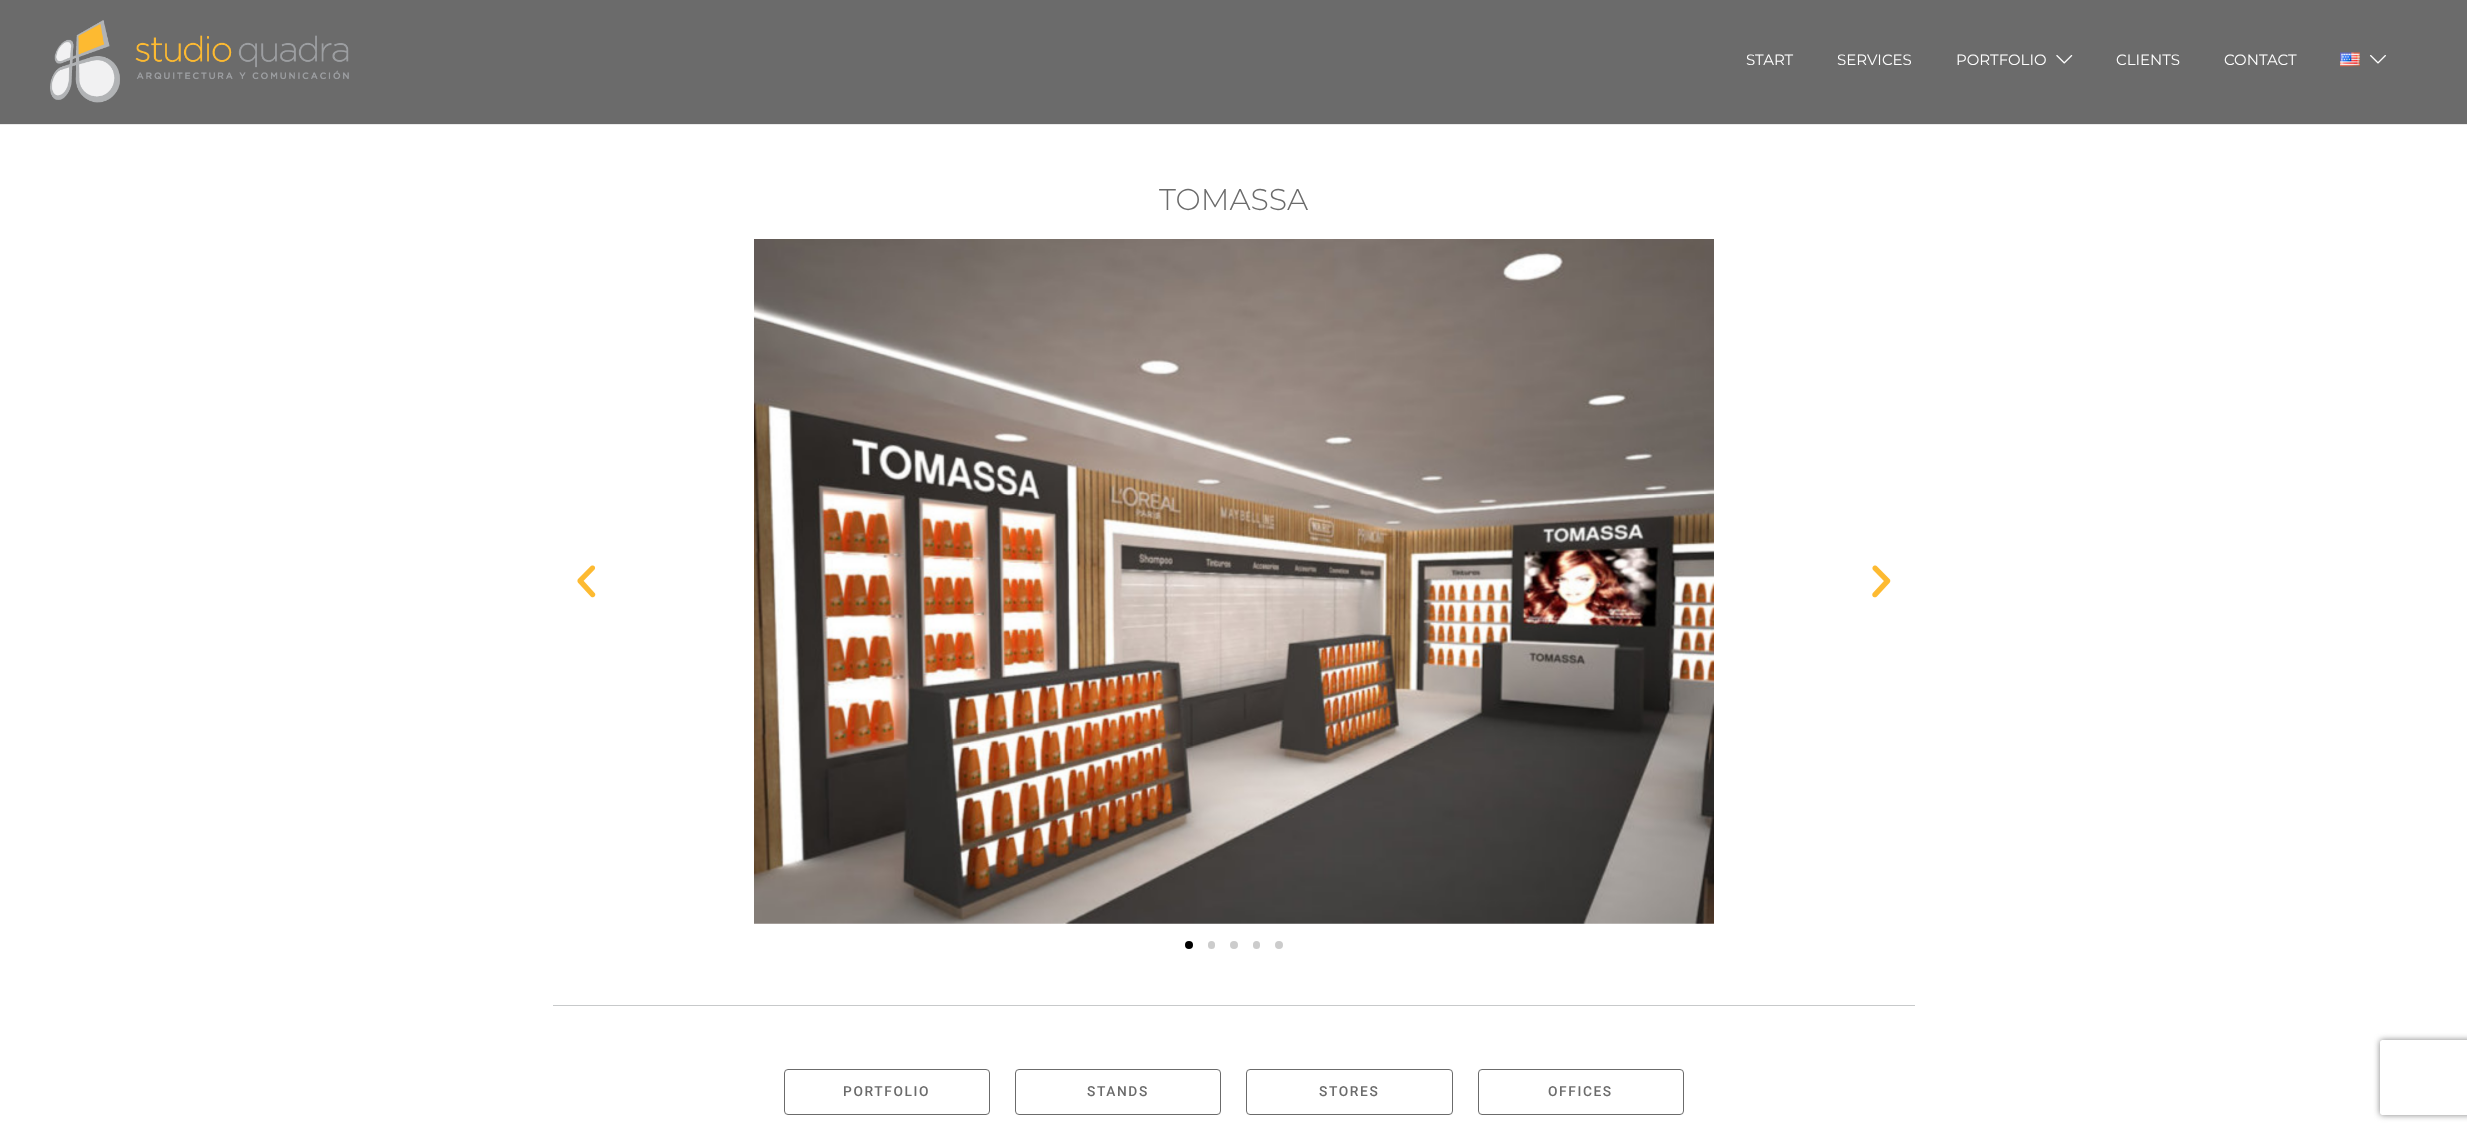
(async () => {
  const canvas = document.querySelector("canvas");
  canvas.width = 2467;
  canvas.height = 1132;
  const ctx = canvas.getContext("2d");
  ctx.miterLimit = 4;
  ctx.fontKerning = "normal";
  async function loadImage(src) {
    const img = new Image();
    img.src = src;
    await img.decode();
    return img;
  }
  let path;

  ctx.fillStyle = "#ffffff";
  ctx.fillRect(0, 0, 2467, 1132);
  ctx.fillStyle = "#6b6b6b";
  ctx.fillRect(0, 0, 2467, 124);
  ctx.fillStyle = "#eaeaea";
  ctx.fillRect(0, 124, 2467, 1);
  ctx.drawImage(await loadImage("img/1.png"), 50, 20, 299, 83);
  ctx.drawImage(await loadImage("img/2.png"), 2056, 55, 17, 9);
  ctx.drawImage(await loadImage("img/3.png"), 2340, 52, 20, 15);
  ctx.drawImage(await loadImage("img/4.png"), 2370, 55, 16, 9);
  ctx.drawImage(await loadImage("img/5.png"), 577, 565, 19, 33);
  ctx.drawImage(await loadImage("img/6.png"), 754, 239, 960, 685);
  ctx.drawImage(await loadImage("img/7.png"), 1872, 565, 19, 33);
  ctx.fillStyle = "#000000";
  ctx.beginPath();
  ctx.arc(1189, 945, 4, 0, Math.PI * 2);
  ctx.fill();
  ctx.fillStyle = "#cccccc";
  ctx.beginPath();
  ctx.roundRect(1208, 941, 7, 8, 3.5);
  ctx.fill();
  ctx.beginPath();
  ctx.arc(1234, 945, 4, 0, Math.PI * 2);
  ctx.fill();
  ctx.beginPath();
  ctx.roundRect(1253, 941, 7, 8, 3.5);
  ctx.fill();
  ctx.beginPath();
  ctx.arc(1279, 945, 4, 0, Math.PI * 2);
  ctx.fill();
  ctx.fillStyle = "#c7c9ca";
  ctx.fillRect(553, 1005, 1362, 1);
  ctx.beginPath();
  ctx.roundRect(784.5, 1069.5, 205, 45, 3.5);
  ctx.strokeStyle = "#6b6b6b";
  ctx.stroke();
  ctx.beginPath();
  ctx.roundRect(1015.5, 1069.5, 205, 45, 3.5);
  ctx.stroke();
  ctx.beginPath();
  ctx.roundRect(1246.5, 1069.5, 206, 45, 3.5);
  ctx.stroke();
  ctx.beginPath();
  ctx.roundRect(1478.5, 1069.5, 205, 45, 3.5);
  ctx.stroke();
  ctx.save();
  path = new Path2D("M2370 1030H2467V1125H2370ZM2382.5 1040H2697.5C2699 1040 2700 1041 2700 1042.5V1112.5C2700 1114 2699 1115 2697.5 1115H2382.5C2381 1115 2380 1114 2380 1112.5V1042.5C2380 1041 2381 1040 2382.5 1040Z");
  ctx.clip(path, "evenodd");
  ctx.fillStyle = "#808080";
  ctx.filter = "blur(3px)";
  ctx.beginPath();
  ctx.roundRect(2380, 1040, 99, 75, 2.5);
  ctx.fill();
  ctx.filter = "none";
  ctx.restore();
  ctx.font = "15px Montserrat";
  ctx.fillStyle = "#ffffff";
  for (const [text, x, y] of [
    ["START", 1746, 65],
    ["SERVICES", 1837, 65],
    ["PORTFOLIO", 1956, 65],
    ["CLIENTS", 2116, 65],
    ["CONTACT", 2224, 65],
  ]) {
    ctx.fillText(text, x, y);
  }
  ctx.font = "300 30px Montserrat";
  ctx.fillStyle = "#6b6b6b";
  ctx.fillText("TOMASSA", 1159, 210);
  ctx.letterSpacing = "1.6px";
  ctx.font = "500 13.75px Roboto";
  for (const [text, x, y] of [
    ["PORTFOLIO", 843, 1096],
    ["STANDS", 1087, 1096],
    ["STORES", 1319, 1096],
    ["OFFICES", 1548, 1096],
  ]) {
    ctx.fillText(text, x, y);
  }
})();
